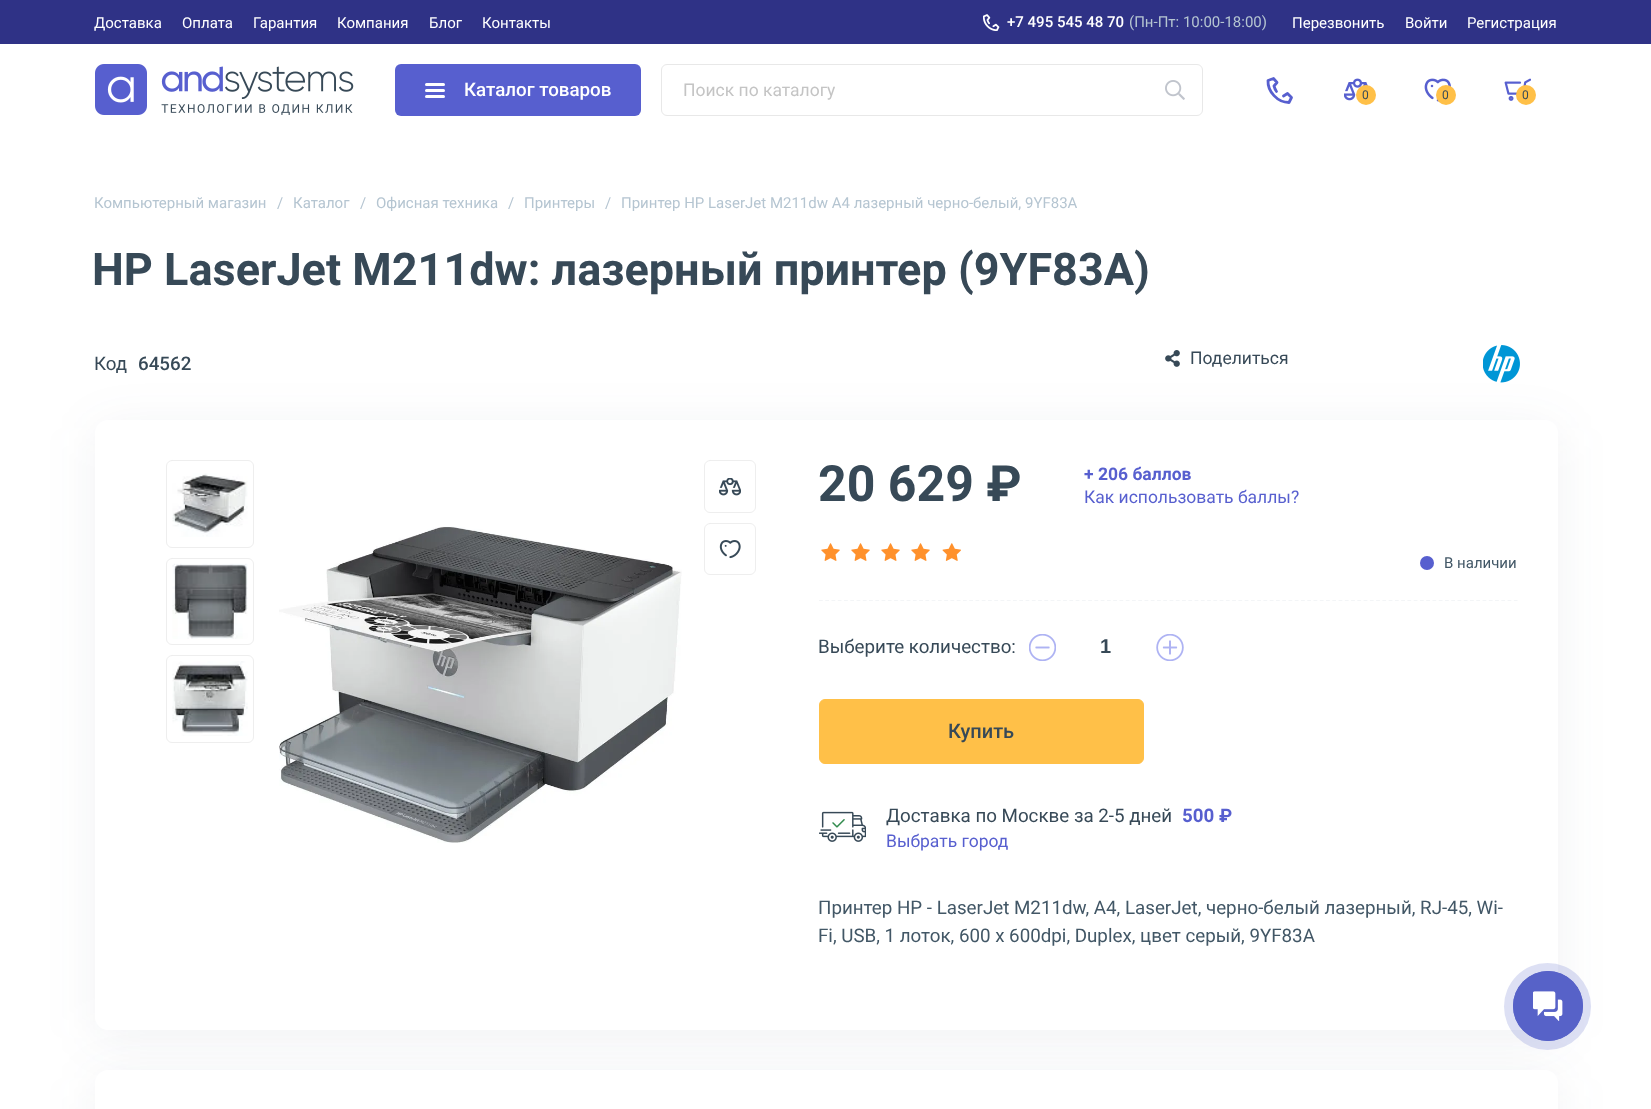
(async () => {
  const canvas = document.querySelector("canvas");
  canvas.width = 1651;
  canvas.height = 1109;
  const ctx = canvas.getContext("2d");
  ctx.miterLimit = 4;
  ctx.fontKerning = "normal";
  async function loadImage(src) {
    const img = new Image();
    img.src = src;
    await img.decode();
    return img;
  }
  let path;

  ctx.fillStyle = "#ffffff";
  ctx.fillRect(0, 0, 1651, 1109);
  ctx.fillStyle = "#2f3286";
  ctx.fillRect(0, 0, 1651, 44);
  ctx.drawImage(await loadImage("img/1.png"), 983, 14, 17, 17);
  ctx.drawImage(await loadImage("img/2.png"), 95, 64, 259, 51);
  ctx.fillStyle = "#575fcf";
  ctx.beginPath();
  ctx.roundRect(395, 64, 246, 52, 6);
  ctx.fill();
  ctx.fillStyle = "#ffffff";
  ctx.beginPath();
  ctx.roundRect(425, 83, 20, 3, 1.5);
  ctx.fill();
  ctx.beginPath();
  ctx.roundRect(425, 89, 20, 3, 1.5);
  ctx.fill();
  ctx.beginPath();
  ctx.roundRect(425, 95, 20, 3, 1.5);
  ctx.fill();
  ctx.beginPath();
  ctx.roundRect(661.5, 64.5, 541, 51, 5.5);
  ctx.strokeStyle = "#e8e8e8";
  ctx.stroke();
  ctx.drawImage(await loadImage("img/3.png"), 1165, 80, 20, 20);
  path = new Path2D("M1283.5 96L1287.5 93.5L1291.5 97.5L1289 102.5C1277.5 102.5 1267.5 91.5 1268 80.5L1273.5 78.5L1277 82.5L1274 86C1274 86 1275 89.5 1276.5 91.5");
  ctx.strokeStyle = "#575fcf";
  ctx.lineWidth = 2.8;
  ctx.lineCap = "round";
  ctx.lineJoin = "round";
  ctx.stroke(path);
  ctx.drawImage(await loadImage("img/4.png"), 1344, 78, 24, 23);
  ctx.fillStyle = "#ffc048";
  ctx.beginPath();
  ctx.arc(1366, 95, 10, 0, Math.PI * 2);
  ctx.fill();
  ctx.drawImage(await loadImage("img/5.png"), 1424, 78, 27, 24);
  ctx.beginPath();
  ctx.arc(1446, 95, 10, 0, Math.PI * 2);
  ctx.fill();
  ctx.drawImage(await loadImage("img/6.png"), 1504, 78, 27, 23);
  ctx.beginPath();
  ctx.arc(1526, 95, 10, 0, Math.PI * 2);
  ctx.fill();
  ctx.drawImage(await loadImage("img/8.png"), 1483, 345, 37, 38);
  ctx.fillStyle = "rgba(56, 69, 94, 0.07)";
  ctx.filter = "blur(25px)";
  ctx.beginPath();
  ctx.roundRect(95, 428, 1463, 610, 13);
  ctx.fill();
  ctx.filter = "none";
  ctx.drawImage(await loadImage("img/7.png"), 1165, 350, 15, 17);
  ctx.fillStyle = "#ffffff";
  ctx.beginPath();
  ctx.roundRect(95, 420, 1463, 610, 13);
  ctx.fill();
  ctx.beginPath();
  ctx.roundRect(166.5, 460.5, 87, 87, 5.5);
  ctx.strokeStyle = "#eeeeee";
  ctx.lineWidth = 1;
  ctx.lineJoin = "miter";
  ctx.stroke();
  ctx.drawImage(await loadImage("img/9.png"), 172, 473, 76, 64);
  ctx.beginPath();
  ctx.roundRect(166.5, 558.5, 87, 86, 5.5);
  ctx.stroke();
  ctx.drawImage(await loadImage("img/10.png"), 172, 563, 76, 76);
  ctx.beginPath();
  ctx.roundRect(166.5, 655.5, 87, 87, 5.5);
  ctx.stroke();
  ctx.drawImage(await loadImage("img/11.png"), 172, 661, 76, 75);
  ctx.drawImage(await loadImage("img/12.png"), 279, 526, 403, 317);
  ctx.drawImage(await loadImage("img/13.png"), 719, 478, 22, 18);
  ctx.beginPath();
  ctx.roundRect(704.5, 460.5, 51, 52, 5.5);
  ctx.stroke();
  ctx.drawImage(await loadImage("img/14.png"), 719, 540, 22, 19);
  ctx.beginPath();
  ctx.roundRect(704.5, 523.5, 51, 51, 5.5);
  ctx.stroke();
  path = new Path2D("M819 600.5H1517.5");
  ctx.strokeStyle = "#f3f5f7";
  ctx.lineWidth = 1.2;
  ctx.lineCap = "butt";
  ctx.setLineDash([3.75, 2.51]);
  ctx.stroke(path);
  ctx.drawImage(await loadImage("img/15.png"), 821, 543, 19, 18);
  ctx.drawImage(await loadImage("img/15.png"), 851, 543, 19, 18);
  ctx.drawImage(await loadImage("img/15.png"), 881, 543, 19, 18);
  ctx.drawImage(await loadImage("img/15.png"), 911, 543, 19, 18);
  ctx.drawImage(await loadImage("img/16.png"), 942, 543, 19, 18);
  ctx.fillStyle = "#575fcf";
  ctx.beginPath();
  ctx.arc(1427, 563, 7, 0, Math.PI * 2);
  ctx.fill();
  ctx.drawImage(await loadImage("img/17.png"), 1029, 634, 27, 27);
  ctx.drawImage(await loadImage("img/18.png"), 1156, 634, 28, 27);
  ctx.fillStyle = "#ffc048";
  ctx.beginPath();
  ctx.roundRect(819.5, 699.5, 324, 64, 5.5);
  ctx.fill();
  ctx.strokeStyle = "#ffc048";
  ctx.lineWidth = 1;
  ctx.setLineDash([]);
  ctx.stroke();
  ctx.drawImage(await loadImage("img/19.png"), 819, 811, 47, 31);
  ctx.fillStyle = "rgba(56, 69, 94, 0.07)";
  ctx.filter = "blur(25px)";
  ctx.beginPath();
  ctx.roundRect(95, 1078, 1463, 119, 13);
  ctx.fill();
  ctx.filter = "none";
  ctx.fillStyle = "#ffffff";
  ctx.beginPath();
  ctx.roundRect(95, 1070, 1463, 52, 13);
  ctx.fill();
  ctx.fillStyle = "rgba(87, 98, 200, 0.2)";
  ctx.beginPath();
  ctx.arc(1547.5, 1006.5, 43.5, 0, Math.PI * 2);
  ctx.fill();
  ctx.beginPath();
  ctx.arc(1548, 1006, 34.5, 0, Math.PI * 2);
  ctx.strokeStyle = "#5762c8";
  ctx.stroke();
  ctx.fillStyle = "#5762c8";
  ctx.beginPath();
  ctx.arc(1548, 1006, 35, 0, Math.PI * 2);
  ctx.fill();
  ctx.drawImage(await loadImage("img/20.png"), 1533, 991, 30, 30);
  ctx.font = "15px Roboto";
  ctx.fillStyle = "#ffffff";
  for (const [text, x, y] of [
    ["Доставка", 94, 28],
    ["Оплата", 182, 28],
    ["Гарантия", 253, 28],
    ["Компания", 337, 28],
    ["Блог", 429, 28],
    ["Контакты", 482, 28],
  ]) {
    ctx.fillText(text, x, y);
  }
  ctx.font = "500 15px Roboto";
  ctx.fillText("+7 495 545 48 70", 1007, 27);
  ctx.font = "15px Roboto";
  ctx.fillStyle = "#b5c5d1";
  ctx.fillText("(Пн-Пт: 10:00-18:00)", 1129, 27);
  ctx.fillStyle = "#ffffff";
  for (const [text, x, y] of [
    ["Перезвонить", 1292, 28],
    ["Войти", 1405, 28],
    ["Регистрация", 1467, 28],
  ]) {
    ctx.fillText(text, x, y);
  }
  ctx.font = "500 18.75px Roboto";
  ctx.fillText("Каталог товаров", 464, 96);
  ctx.font = "17.5px Roboto";
  ctx.fillStyle = "#c4c4c4";
  ctx.fillText("Поиск по каталогу", 683, 96);
  ctx.font = "12px Roboto";
  ctx.fillStyle = "#374957";
  for (const [text, x, y] of [
    ["0", 1362, 99],
    ["0", 1442, 99],
    ["0", 1522, 99],
  ]) {
    ctx.fillText(text, x, y);
  }
  ctx.font = "15px Roboto";
  ctx.fillStyle = "#b5c5d1";
  for (const [text, x, y] of [
    ["Компьютерный магазин", 94, 208],
    ["/", 277, 208],
    ["Каталог", 293, 208],
    ["/", 360, 208],
    ["Офисная техника", 376, 208],
    ["/", 508, 208],
    ["Принтеры", 524, 208],
    ["/", 605, 208],
    ["Принтер HP LaserJet M211dw A4 лазерный черно-белый, 9YF83A", 621, 208],
  ]) {
    ctx.fillText(text, x, y);
  }
  ctx.font = "bold 45px Roboto";
  ctx.fillStyle = "#374957";
  ctx.fillText("HP LaserJet M211dw: лазерный принтер (9YF83A)", 92, 285);
  ctx.font = "18.75px Roboto";
  ctx.fillText("Код", 94, 370);
  ctx.font = "500 18.75px Roboto";
  ctx.fillText("64562", 138, 370);
  ctx.font = "17.5px Roboto";
  ctx.fillText("Поделиться", 1190, 364);
  ctx.font = "bold 50px Roboto";
  ctx.fillText("20 629 ₽", 818, 501);
  ctx.font = "bold 17.5px Roboto";
  ctx.fillStyle = "#575fcf";
  ctx.fillText("+ 206 баллов", 1084, 480);
  ctx.font = "17.5px Roboto";
  ctx.fillText("Как использовать баллы?", 1084, 503);
  ctx.font = "15px Roboto";
  ctx.fillStyle = "#425766";
  ctx.fillText("В наличии", 1444, 568);
  ctx.font = "18.75px Roboto";
  ctx.fillStyle = "#374957";
  ctx.fillText("Выберите количество:", 818, 653);
  ctx.font = "bold 20px Liberation Sans";
  ctx.fillText("1", 1100, 653);
  ctx.font = "500 20px Roboto";
  ctx.fillText("Купить", 948, 738);
  ctx.font = "18.75px Roboto";
  ctx.fillText("Доставка по Москве за 2-5 дней", 886, 822);
  ctx.font = "bold 18.75px Roboto";
  ctx.fillStyle = "#575fcf";
  ctx.fillText("500 ₽", 1182, 822);
  ctx.font = "17.5px Roboto";
  ctx.fillText("Выбрать город", 886, 847);
  ctx.font = "18.75px Roboto";
  ctx.fillStyle = "#425766";
  ctx.fillText("Принтер HP - LaserJet M211dw, A4, LaserJet, черно-белый лазерный, RJ-45, Wi-", 818, 914);
  ctx.fillText("Fi, USB, 1 лоток, 600 x 600dpi, Duplex, цвет серый, 9YF83A", 818, 942);
})();
